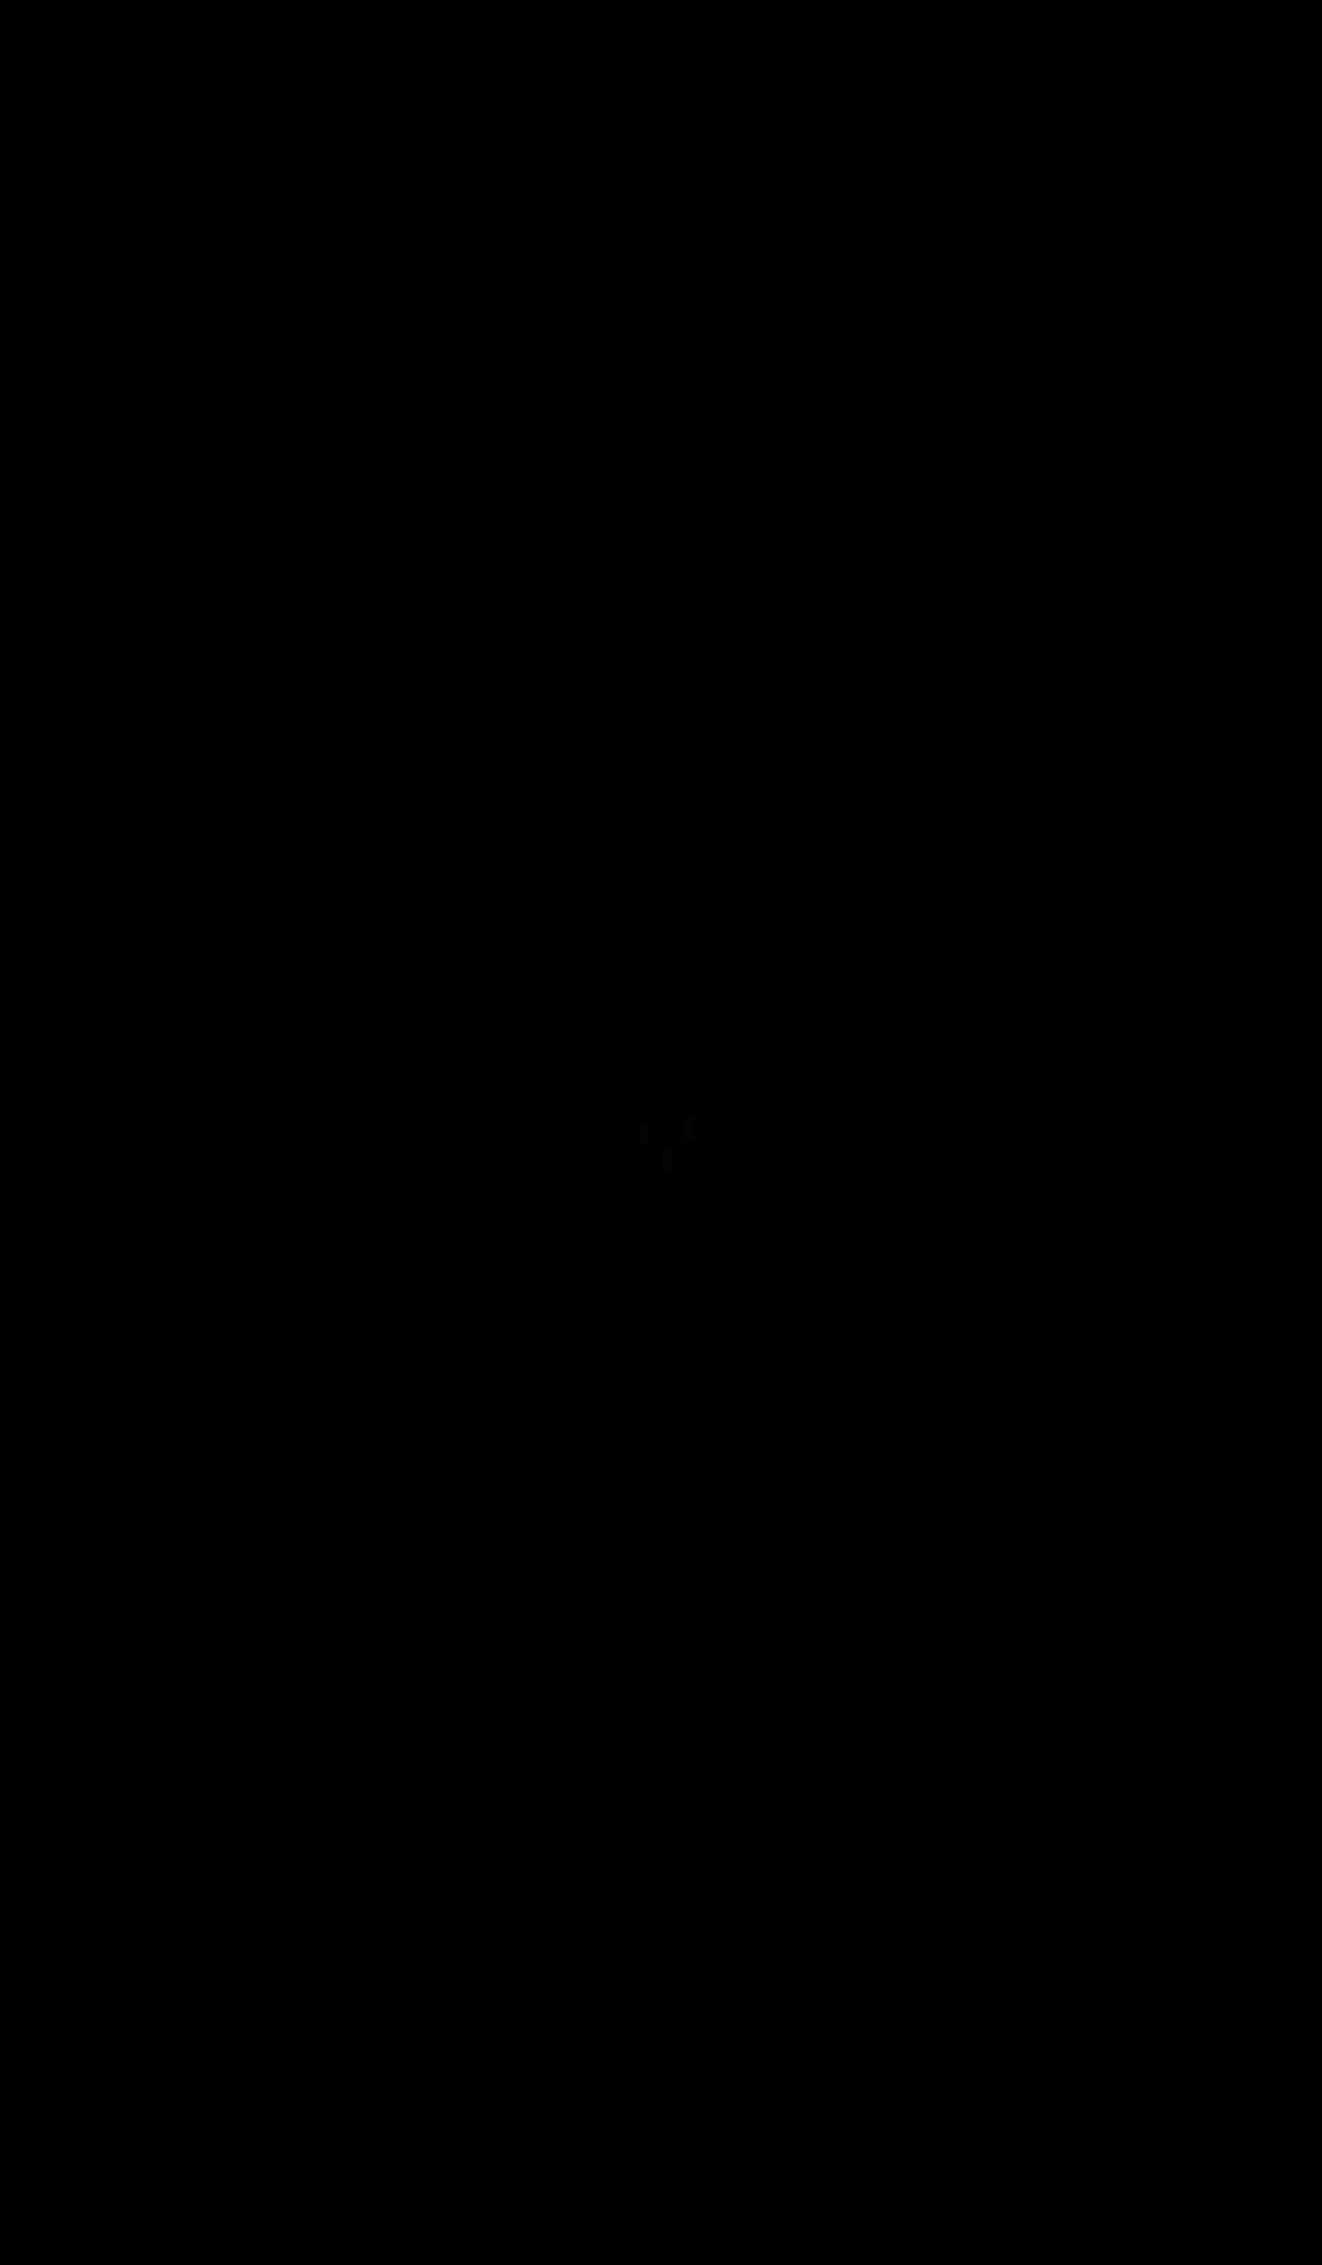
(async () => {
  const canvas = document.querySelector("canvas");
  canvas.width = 1322;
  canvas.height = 2265;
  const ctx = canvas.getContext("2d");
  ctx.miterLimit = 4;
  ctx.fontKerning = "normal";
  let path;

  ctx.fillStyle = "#ffffff";
  ctx.fillRect(0, 0, 1322, 2265);
  ctx.fillStyle = "#000000";
  path = new Path2D("M0 0H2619C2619 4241 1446 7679 0 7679Z");
  ctx.fill(path);
  for (const [x, y, w, h, color] of [
    [639, 1122, 9, 23, "#040404"],
    [684, 1117, 9, 23, "#040404"],
    [662, 1147, 9, 23, "#040404"],
  ]) {
    ctx.fillStyle = color;
    ctx.fillRect(x, y, w, h);
  }
})();
